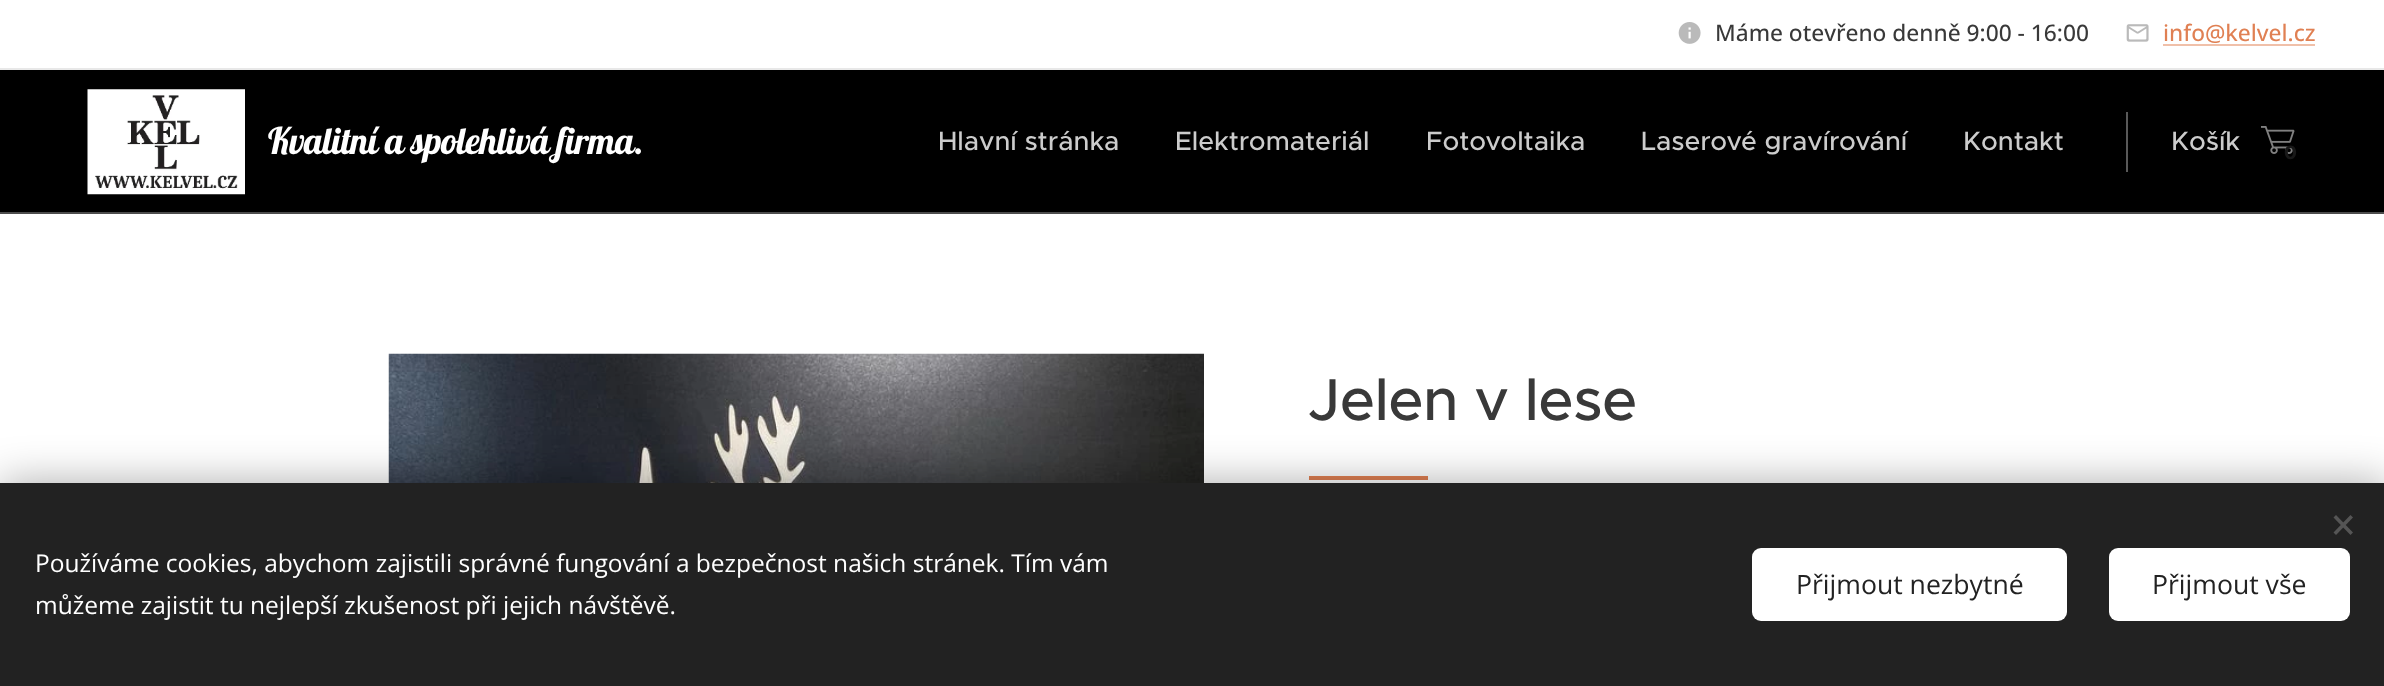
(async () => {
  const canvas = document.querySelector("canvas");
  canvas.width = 2384;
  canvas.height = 686;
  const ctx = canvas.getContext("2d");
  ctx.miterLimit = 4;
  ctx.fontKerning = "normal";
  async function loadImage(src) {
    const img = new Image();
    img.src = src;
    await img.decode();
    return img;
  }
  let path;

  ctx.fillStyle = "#ffffff";
  ctx.fillRect(0, 0, 2384, 686);
  ctx.drawImage(await loadImage("img/1.png"), 1678, 22, 23, 22);
  ctx.drawImage(await loadImage("img/2.png"), 2126, 24, 23, 18);
  for (const [x, y, w, h, color] of [
    [2163, 44, 152, 2, "#f0c0a9"],
    [0, 68, 2384, 2, "#e8e8e8"],
    [0, 70, 2384, 142, "#000000"],
  ]) {
    ctx.fillStyle = color;
    ctx.fillRect(x, y, w, h);
  }
  ctx.drawImage(await loadImage("img/3.png"), 87, 89, 158, 106);
  ctx.fillStyle = "#595959";
  ctx.fillRect(2126, 112, 2, 60);
  ctx.drawImage(await loadImage("img/4.png"), 2261, 126, 34, 28);
  ctx.fillStyle = "#4d4d4d";
  ctx.fillRect(0, 212, 2384, 2);
  ctx.drawImage(await loadImage("img/5.png"), 388, 353, 816, 130);
  ctx.fillStyle = "#e08053";
  ctx.fillRect(1309, 476, 119, 4);
  ctx.fillStyle = "rgba(0, 0, 0, 0.33)";
  ctx.filter = "blur(22px)";
  ctx.beginPath();
  ctx.rect(0, 483, 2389, 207);
  ctx.fill();
  ctx.filter = "none";
  ctx.fillStyle = "#222222";
  ctx.fillRect(0, 483, 2384, 203);
  ctx.fillStyle = "#555555";
  path = new Path2D("M2333.5 532.5L2350.5 515L2353 517.5L2336 535Z");
  ctx.fill(path);
  path = new Path2D("M2336 515L2353 532.5L2350.5 535L2333.5 517.5Z");
  ctx.fill(path);
  ctx.fillStyle = "#ffffff";
  ctx.beginPath();
  ctx.roundRect(1752, 548, 315, 73, 9);
  ctx.fill();
  ctx.beginPath();
  ctx.roundRect(2109, 548, 241, 73, 9);
  ctx.fill();
  ctx.font = "500 22.75px Open Sans";
  ctx.fillStyle = "#393939";
  ctx.fillText("Máme otevřeno denně 9:00 - 16:00", 1715, 41);
  ctx.fillStyle = "#e08053";
  ctx.fillText("info@kelvel.cz", 2163, 41);
  ctx.letterSpacing = "-0.6px";
  ctx.font = "36.75px Lobster";
  ctx.fillStyle = "#ffffff";
  ctx.fillText("Kvalitní a spolehlivá firma.", 268, 154);
  ctx.letterSpacing = "0px";
  ctx.font = "500 26.6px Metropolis";
  ctx.fillStyle = "#cccccc";
  for (const [text, x, y] of [
    ["Hlavní stránka", 938, 150],
    ["Elektromateriál", 1175, 150],
    ["Fotovoltaika", 1426, 150],
    ["Laserové gravírování", 1641, 150],
    ["Kontakt", 1963, 150],
    ["Košík", 2171, 150],
  ]) {
    ctx.fillText(text, x, y);
  }
  ctx.font = "bold 19px Montserrat";
  ctx.fillStyle = "#181818";
  ctx.fillText("0", 2284, 159);
  ctx.letterSpacing = "-0.6px";
  ctx.font = "500 59.5px Metropolis";
  ctx.fillStyle = "#393939";
  ctx.fillText("Jelen v lese", 1308, 420);
  ctx.letterSpacing = "0px";
  ctx.font = "24.5px Open Sans";
  ctx.fillStyle = "#ffffff";
  ctx.fillText("Používáme cookies, abychom zajistili správné fungování a bezpečnost našich stránek. Tím vám", 35, 572);
  ctx.fillText("můžeme zajistit tu nejlepší zkušenost při jejich návštěvě.", 35, 614);
  ctx.font = "26.6px Open Sans";
  ctx.fillStyle = "#222222";
  ctx.fillText("Přijmout nezbytné", 1796, 594);
  ctx.fillText("Přijmout vše", 2152, 594);
})();
